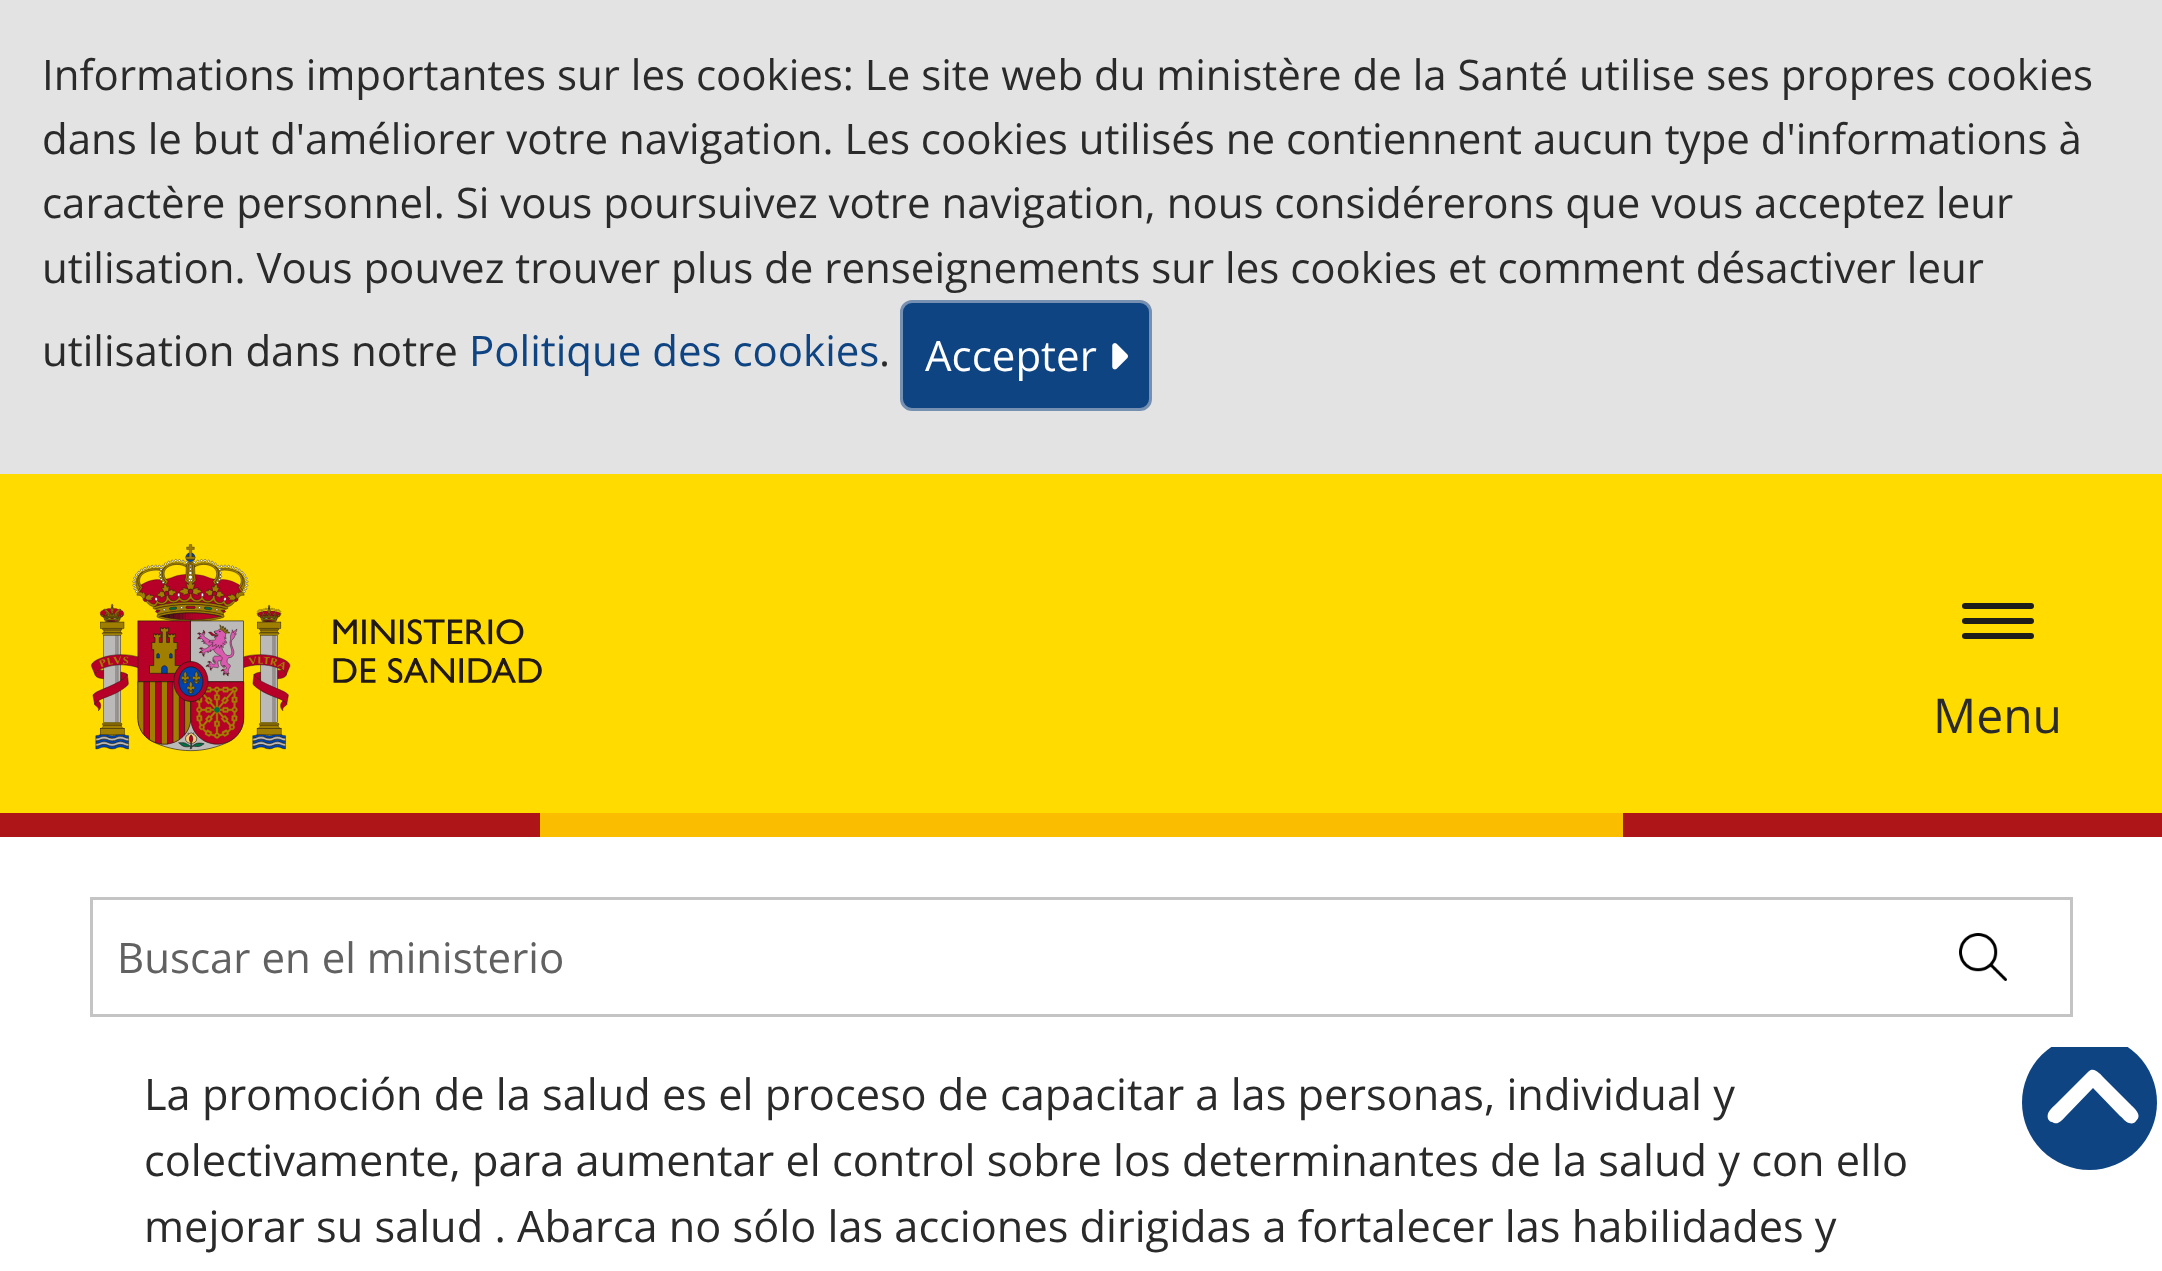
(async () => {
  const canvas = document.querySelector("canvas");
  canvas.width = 2162;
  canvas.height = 1271;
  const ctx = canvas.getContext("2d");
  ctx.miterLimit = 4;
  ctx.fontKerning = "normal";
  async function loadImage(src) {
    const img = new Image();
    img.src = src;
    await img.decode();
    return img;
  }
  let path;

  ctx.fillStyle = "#ffffff";
  ctx.fillRect(0, 0, 2162, 1271);
  ctx.fillStyle = "#0f4483";
  ctx.beginPath();
  ctx.arc(2089.5, 1102.5, 67.5, 0, Math.PI * 2);
  ctx.fill();
  for (const [x, y, w, h, color] of [
    [2051, 1035, 77, 12, "#ffffff"],
    [0, 474, 2162, 339, "#ffdb00"],
    [0, 0, 2162, 474, "#e3e3e3"],
  ]) {
    ctx.fillStyle = color;
    ctx.fillRect(x, y, w, h);
  }
  ctx.fillStyle = "#0f4483";
  ctx.beginPath();
  ctx.roundRect(901.5, 301.5, 249, 108, 10.5);
  ctx.fill();
  ctx.strokeStyle = "#7690b2";
  ctx.lineWidth = 3;
  ctx.stroke();
  ctx.drawImage(await loadImage("img/1.png"), 1112, 343, 16, 27);
  ctx.drawImage(await loadImage("img/2.png"), 91, 544, 451, 208);
  ctx.fillStyle = "#1d1d1b";
  ctx.beginPath();
  ctx.roundRect(1962, 603, 72, 6, 3);
  ctx.fill();
  ctx.beginPath();
  ctx.roundRect(1962, 618, 72, 6, 3);
  ctx.fill();
  ctx.beginPath();
  ctx.roundRect(1962, 633, 72, 6, 3);
  ctx.fill();
  for (const [x, y, w, h, color] of [
    [0, 813, 540, 24, "#ad1519"],
    [540, 813, 1083, 24, "#fabd00"],
    [1623, 813, 539, 24, "#ad1519"],
  ]) {
    ctx.fillStyle = color;
    ctx.fillRect(x, y, w, h);
  }
  ctx.strokeStyle = "#c4c4c4";
  ctx.strokeRect(91.5, 898.5, 1980, 117);
  ctx.drawImage(await loadImage("img/3.png"), 1959, 933, 48, 48);
  ctx.fillStyle = "#ffffff";
  path = new Path2D("M2088 1072C2094 1066 2100 1074 2105 1079L2130 1104C2134 1108 2143 1115 2136 1121C2135 1123 2132 1124 2129 1123C2125 1122 2123 1118 2120 1116L2093 1088L2066 1116C2062 1120 2058 1126 2052 1122C2050 1122 2049 1120 2048 1119C2046 1112 2052 1108 2056 1104Z");
  ctx.fill(path);
  ctx.font = "42px Open Sans";
  ctx.fillStyle = "#2a2a2a";
  for (const [text, x, y] of [
    ["Informations importantes sur les cookies: Le site web du ministère de la Santé utilise ses propres cookies", 42, 90],
    ["dans le but d'améliorer votre navigation. Les cookies utilisés ne contiennent aucun type d'informations à", 42, 154],
    ["caractère personnel. Si vous poursuivez votre navigation, nous considérerons que vous acceptez leur", 42, 218],
    ["utilisation. Vous pouvez trouver plus de renseignements sur les cookies et comment désactiver leur", 42, 283],
    ["utilisation dans notre", 42, 366],
  ]) {
    ctx.fillText(text, x, y);
  }
  ctx.fillStyle = "#0f4483";
  ctx.fillText("Politique des cookies", 469, 366);
  ctx.fillStyle = "#2a2a2a";
  ctx.fillText(".", 879, 366);
  ctx.fillStyle = "#ffffff";
  ctx.fillText("Accepter", 925, 371);
  ctx.font = "48px Open Sans";
  ctx.fillStyle = "#2a2a2a";
  ctx.fillText("Menu", 1933, 733);
  ctx.font = "42px Open Sans";
  ctx.fillStyle = "#616161";
  ctx.fillText("Buscar en el ministerio", 117, 973);
  ctx.font = "43.3px Open Sans";
  ctx.fillStyle = "#2a2a2a";
  for (const [text, x, y] of [
    ["La promoción de la salud es el proceso de capacitar a las personas, individual y", 144, 1110],
    ["colectivamente, para aumentar el control sobre los determinantes de la salud y con ello", 144, 1176],
    ["mejorar su salud . Abarca no sólo las acciones dirigidas a fortalecer las habilidades y", 144, 1242],
  ]) {
    ctx.fillText(text, x, y);
  }
})();
